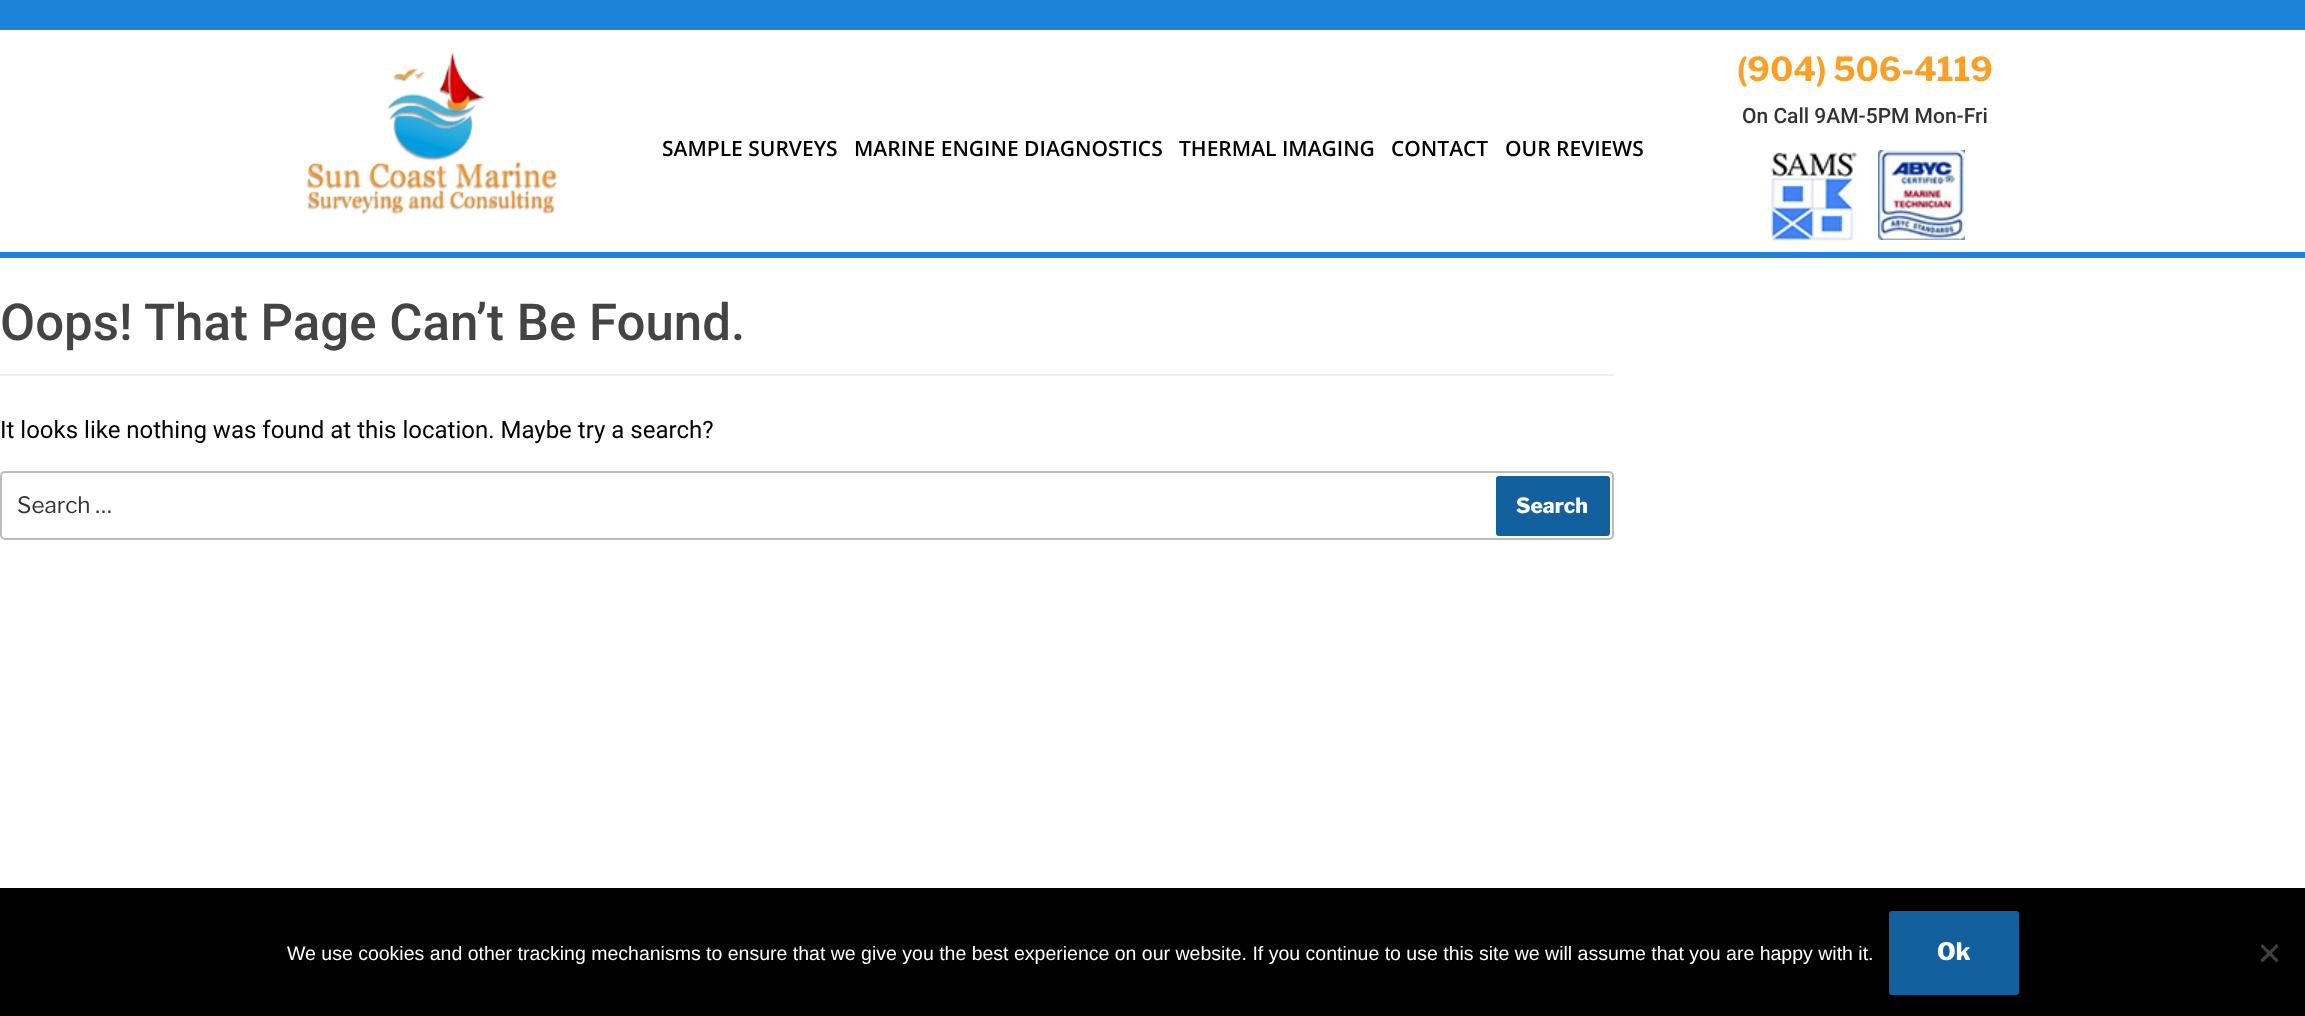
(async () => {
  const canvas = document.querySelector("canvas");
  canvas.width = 2305;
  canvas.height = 1016;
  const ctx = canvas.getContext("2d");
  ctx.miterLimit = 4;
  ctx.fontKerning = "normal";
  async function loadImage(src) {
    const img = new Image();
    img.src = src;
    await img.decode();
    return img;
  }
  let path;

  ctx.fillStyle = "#ffffff";
  ctx.fillRect(0, 0, 2305, 1016);
  ctx.fillStyle = "#1c83d8";
  ctx.fillRect(0, 0, 2305, 30);
  ctx.fillRect(0, 252, 2305, 6);
  ctx.drawImage(await loadImage("img/1.png"), 306, 51, 252, 164);
  ctx.drawImage(await loadImage("img/2.png"), 1770, 151, 88, 90);
  ctx.drawImage(await loadImage("img/3.png"), 1878, 150, 87, 90);
  ctx.fillStyle = "#eeeeee";
  ctx.fillRect(0, 374, 1614, 2);
  ctx.beginPath();
  ctx.roundRect(1, 472, 1612, 67, 4);
  ctx.strokeStyle = "#bbbbbb";
  ctx.lineWidth = 2;
  ctx.stroke();
  ctx.fillStyle = "#13609f";
  ctx.beginPath();
  ctx.roundRect(1496, 476, 114, 60, 3);
  ctx.fill();
  ctx.fillStyle = "#000000";
  ctx.fillRect(0, 888, 2305, 128);
  ctx.fillStyle = "#13609f";
  ctx.beginPath();
  ctx.roundRect(1889, 911, 130, 84, 3);
  ctx.fill();
  ctx.fillStyle = "#404040";
  path = new Path2D("M2276.5 944L2278.5 946.5L2262.5 962.5L2260.5 960Z");
  ctx.fill(path);
  path = new Path2D("M2260.5 946.5L2262.5 944L2278.5 960L2276.5 962.5Z");
  ctx.fill(path);
  ctx.font = "bold 33px Libre Franklin";
  ctx.fillStyle = "#fe9f23";
  ctx.fillText("(904) 506-4119", 1737, 81);
  ctx.font = "500 21px Roboto";
  ctx.fillStyle = "#333333";
  ctx.fillText("On Call 9AM-5PM Mon-Fri", 1742, 123);
  ctx.font = "600 21px Open Sans";
  ctx.fillStyle = "#010101";
  for (const [text, x, y] of [
    ["SAMPLE SURVEYS", 662, 156],
    ["MARINE ENGINE DIAGNOSTICS", 854, 156],
    ["THERMAL IMAGING", 1179, 156],
    ["CONTACT", 1391, 156],
    ["OUR REVIEWS", 1505, 156],
  ]) {
    ctx.fillText(text, x, y);
  }
  ctx.font = "500 51px Roboto";
  ctx.fillStyle = "#444444";
  ctx.fillText("Oops! That Page Can’t Be Found.", 0, 340);
  ctx.font = "24px Roboto";
  ctx.fillStyle = "#010101";
  ctx.fillText("It looks like nothing was found at this location. Maybe try a search?", 0, 438);
  ctx.font = "22.5px Libre Franklin";
  ctx.fillStyle = "#333333";
  ctx.fillText("Search …", 17, 513);
  ctx.font = "800 21px Libre Franklin";
  ctx.fillStyle = "#ffffff";
  ctx.fillText("Search", 1516, 513);
  ctx.font = "19.5px Liberation Sans";
  ctx.fillText("We use cookies and other tracking mechanisms to ensure that we give you the best experience on our website. If you continue to use this site we will assume that you are happy with it.", 287, 960);
  ctx.font = "800 24px Libre Franklin";
  ctx.fillText("Ok", 1937, 960);
})();
